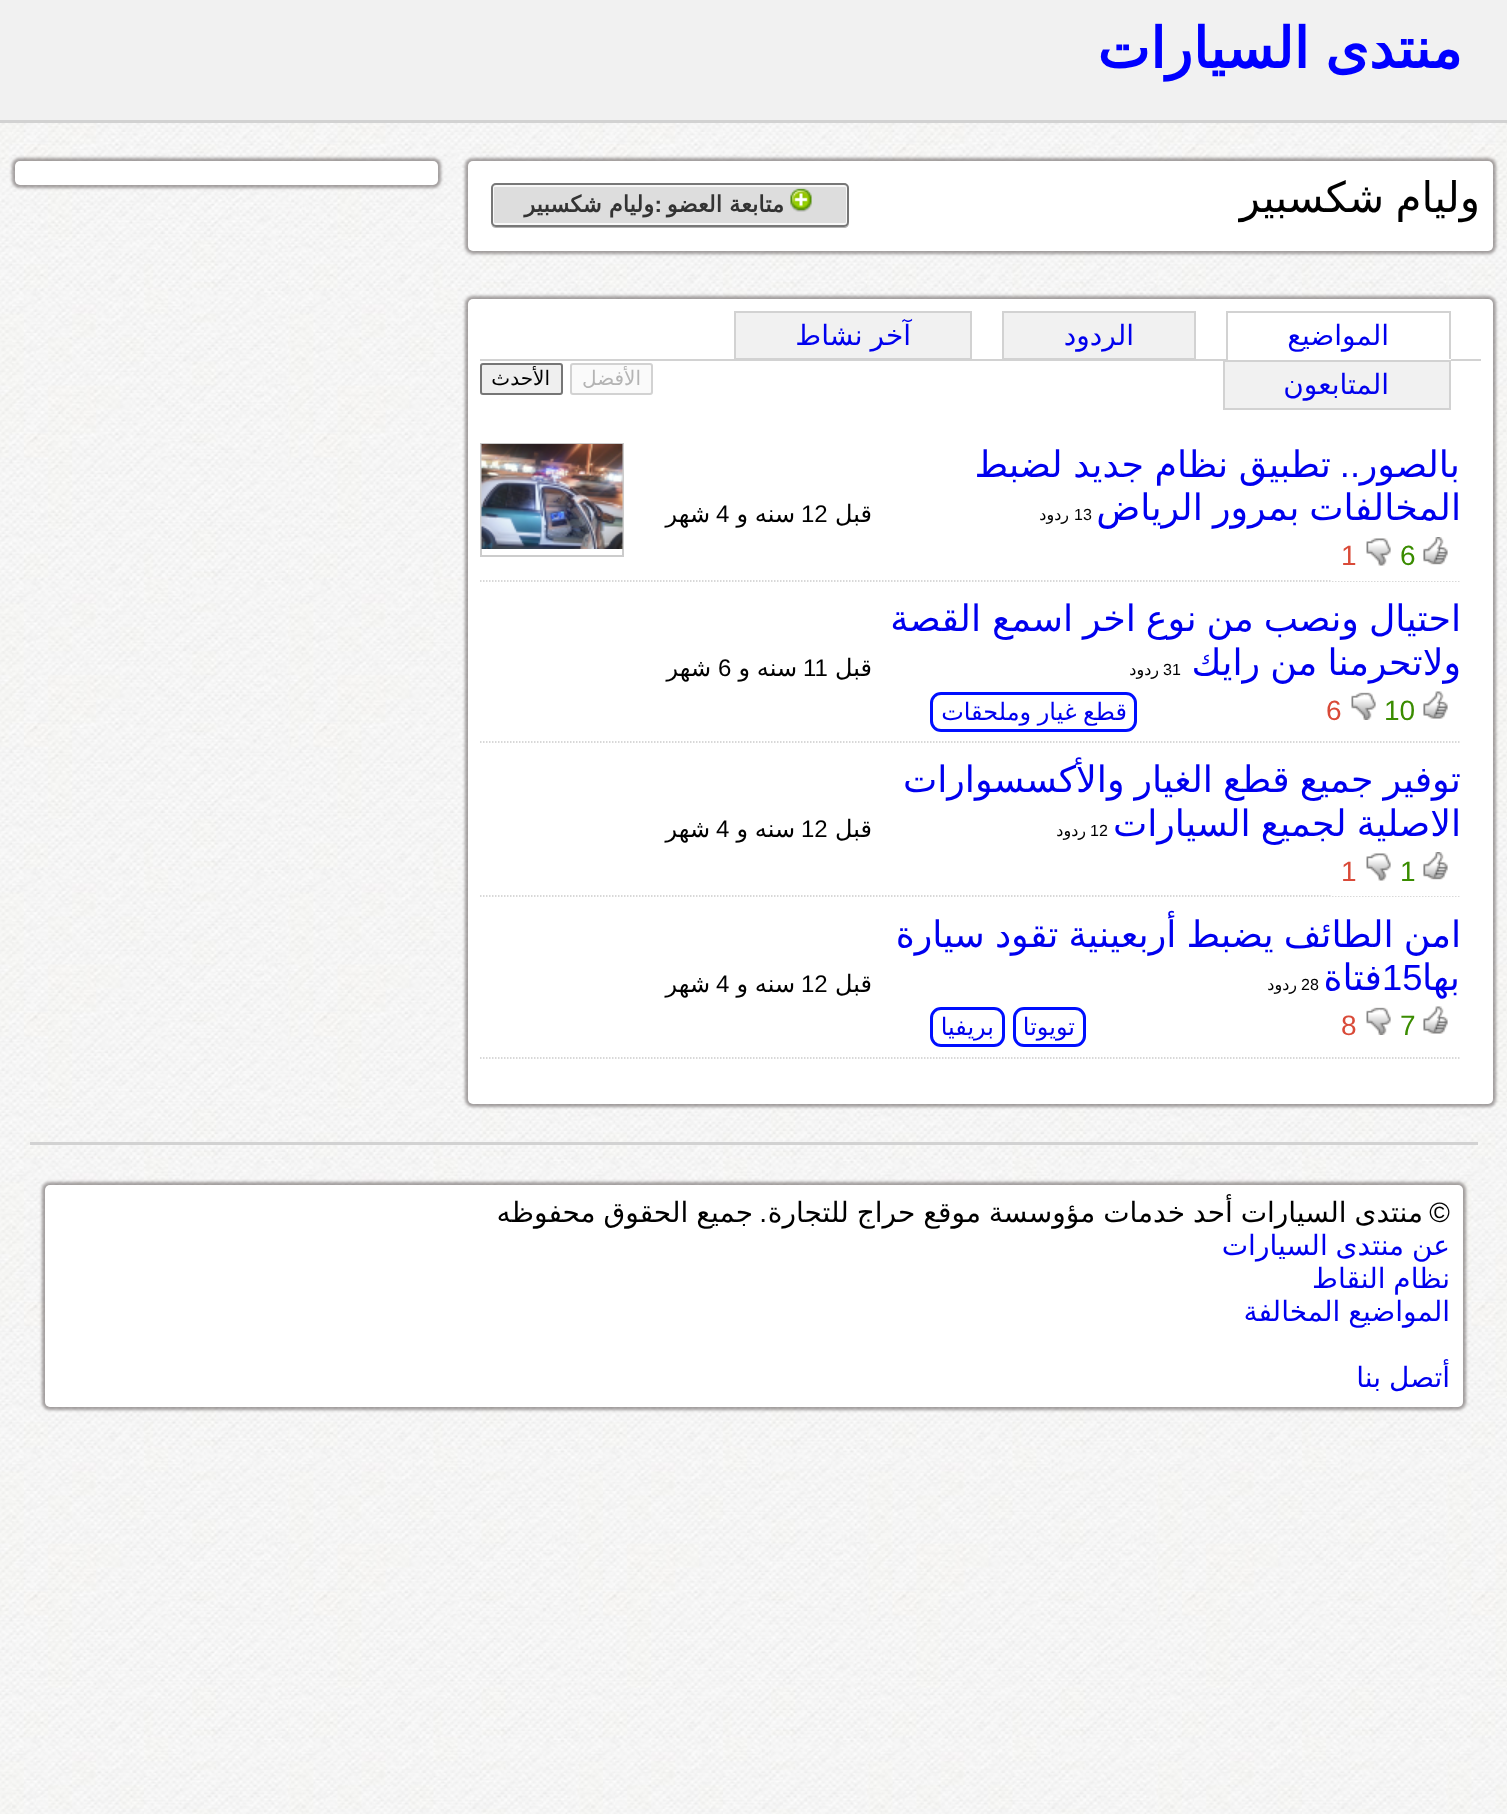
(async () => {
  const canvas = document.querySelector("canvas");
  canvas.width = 1507;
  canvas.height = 1814;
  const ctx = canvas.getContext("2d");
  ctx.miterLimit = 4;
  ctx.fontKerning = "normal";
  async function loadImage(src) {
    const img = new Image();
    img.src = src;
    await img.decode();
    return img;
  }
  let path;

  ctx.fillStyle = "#ffffff";
  ctx.fillRect(0, 0, 1507, 1814);
  ctx.drawImage(await loadImage("img/1.png"), 0, 123, 1507, 1691);
  ctx.fillStyle = "#f1f1f1";
  ctx.fillRect(0, 0, 1507, 120);
  ctx.fillStyle = "#d2d2d2";
  ctx.fillRect(0, 120, 1507, 3);
  ctx.fillStyle = "rgba(34, 25, 25, 0.4)";
  ctx.filter = "blur(1.5px)";
  ctx.beginPath();
  ctx.roundRect(12, 158, 429, 30, 8);
  ctx.fill();
  ctx.filter = "none";
  ctx.fillStyle = "#ffffff";
  ctx.beginPath();
  ctx.roundRect(15, 161, 423, 24, 5);
  ctx.fill();
  ctx.fillStyle = "rgba(34, 25, 25, 0.4)";
  ctx.filter = "blur(1.5px)";
  ctx.beginPath();
  ctx.roundRect(465, 158, 1031, 96, 8);
  ctx.fill();
  ctx.filter = "none";
  ctx.fillStyle = "#ffffff";
  ctx.beginPath();
  ctx.roundRect(468, 161, 1025, 90, 5);
  ctx.fill();
  ctx.fillStyle = "#b3b3b3";
  path = new Path2D("M491 224C492 227 494 228 496 228H844C847 228 849 226 849 223V222C849 224 847 226 845 226H495C493 226 492 226 491 224Z");
  ctx.fill(path);
  ctx.fillStyle = "#dddddd";
  ctx.beginPath();
  ctx.roundRect(491, 183, 358, 44, 5);
  ctx.fill();
  ctx.beginPath();
  ctx.roundRect(493, 186, 354, 38, 2);
  ctx.strokeStyle = "#f8f8f8";
  ctx.lineWidth = 2;
  ctx.stroke();
  ctx.beginPath();
  ctx.roundRect(492, 184, 356, 42, 4);
  ctx.strokeStyle = "#777777";
  ctx.stroke();
  ctx.drawImage(await loadImage("img/2.png"), 790, 188, 22, 24);
  ctx.fillStyle = "rgba(34, 25, 25, 0.4)";
  ctx.filter = "blur(1.5px)";
  ctx.beginPath();
  ctx.roundRect(465, 296, 1031, 811, 8);
  ctx.fill();
  ctx.filter = "none";
  ctx.fillStyle = "#ffffff";
  ctx.beginPath();
  ctx.roundRect(468, 299, 1025, 805, 5);
  ctx.fill();
  for (const [x, y, w, h, color] of [
    [480, 359, 1001, 2, "#d2d2d2"],
    [1226, 311, 225, 2, "#d2d2d2"],
    [1449, 311, 2, 49, "#d2d2d2"],
    [1226, 359, 225, 1, "#ffffff"],
    [1226, 311, 2, 49, "#d2d2d2"],
  ]) {
    ctx.fillStyle = color;
    ctx.fillRect(x, y, w, h);
  }
  ctx.fillStyle = "#f1f1f1";
  ctx.beginPath();
  ctx.rect(1003, 312, 192, 47);
  ctx.fill();
  ctx.strokeStyle = "#d2d2d2";
  ctx.stroke();
  ctx.beginPath();
  ctx.rect(735, 312, 236, 47);
  ctx.fill();
  ctx.stroke();
  ctx.beginPath();
  ctx.rect(1224, 361, 226, 48);
  ctx.fill();
  ctx.stroke();
  ctx.fillStyle = "#fafafa";
  ctx.beginPath();
  ctx.roundRect(571, 364, 81, 30, 2);
  ctx.fill();
  ctx.stroke();
  ctx.fillStyle = "#efefef";
  ctx.beginPath();
  ctx.roundRect(481, 364, 81, 30, 2);
  ctx.fill();
  ctx.strokeStyle = "#767676";
  ctx.stroke();
  path = new Path2D("M480 581H1461");
  ctx.strokeStyle = "#cccccc";
  ctx.lineWidth = 1.5;
  ctx.setLineDash([1.5, 1.5]);
  ctx.stroke(path);
  ctx.strokeStyle = "#ffffff";
  ctx.lineWidth = 3;
  ctx.setLineDash([]);
  ctx.strokeRect(1332.5, 531.5, 127, 48);
  ctx.drawImage(await loadImage("img/3.png"), 1423, 537, 25, 28);
  ctx.drawImage(await loadImage("img/4.png"), 1366, 538, 25, 28);
  ctx.strokeStyle = "#cccccc";
  ctx.lineWidth = 2;
  ctx.strokeRect(481, 444, 142, 112);
  ctx.drawImage(await loadImage("img/5.png"), 481, 444, 142, 105);
  path = new Path2D("M480 742H1461");
  ctx.lineWidth = 1.5;
  ctx.setLineDash([1.5, 1.5]);
  ctx.stroke(path);
  ctx.drawImage(await loadImage("img/6.png"), 1423, 691, 25, 28);
  ctx.drawImage(await loadImage("img/7.png"), 1351, 692, 25, 28);
  ctx.beginPath();
  ctx.roundRect(931.5, 693.5, 204, 37, 9.5);
  ctx.strokeStyle = "#000fff";
  ctx.lineWidth = 3;
  ctx.setLineDash([]);
  ctx.stroke();
  path = new Path2D("M480 896H1461");
  ctx.strokeStyle = "#cccccc";
  ctx.lineWidth = 1.5;
  ctx.setLineDash([1.5, 1.5]);
  ctx.stroke(path);
  ctx.strokeStyle = "#ffffff";
  ctx.lineWidth = 3;
  ctx.setLineDash([]);
  ctx.strokeRect(1332.5, 846.5, 127, 48);
  ctx.drawImage(await loadImage("img/3.png"), 1423, 852, 25, 28);
  ctx.drawImage(await loadImage("img/4.png"), 1366, 853, 25, 28);
  path = new Path2D("M480 1058H1461");
  ctx.strokeStyle = "#cccccc";
  ctx.lineWidth = 1.5;
  ctx.setLineDash([1.5, 1.5]);
  ctx.stroke(path);
  ctx.drawImage(await loadImage("img/6.png"), 1423, 1006, 25, 28);
  ctx.drawImage(await loadImage("img/7.png"), 1366, 1007, 25, 28);
  ctx.beginPath();
  ctx.roundRect(1014.5, 1008.5, 70, 37, 9.5);
  ctx.strokeStyle = "#000fff";
  ctx.lineWidth = 3;
  ctx.setLineDash([]);
  ctx.stroke();
  ctx.beginPath();
  ctx.roundRect(931.5, 1008.5, 72, 37, 9.5);
  ctx.stroke();
  ctx.fillStyle = "#d2d2d2";
  ctx.fillRect(30, 1142, 1448, 3);
  ctx.fillStyle = "rgba(34, 25, 25, 0.4)";
  ctx.filter = "blur(1.5px)";
  ctx.beginPath();
  ctx.roundRect(42, 1182, 1424, 228, 8);
  ctx.fill();
  ctx.filter = "none";
  ctx.fillStyle = "#ffffff";
  ctx.beginPath();
  ctx.roundRect(45, 1185, 1418, 222, 5);
  ctx.fill();
  ctx.wordSpacing = "-2px";
  ctx.direction = "rtl";
  ctx.font = "bold 56px DejaVu Sans";
  ctx.fillStyle = "#0000ff";
  ctx.fillText("منتدى السيارات", 1462, 68);
  ctx.font = "42px DejaVu Sans";
  ctx.fillStyle = "#000000";
  ctx.fillText("وليام شكسبير", 1480, 212);
  ctx.wordSpacing = "0px";
  ctx.font = "bold 22.5px DejaVu Sans";
  ctx.fillStyle = "#333333";
  ctx.fillText("متابعة العضو", 784, 212);
  ctx.font = "bold 22.5px Liberation Sans";
  ctx.fillText(":", 662, 212);
  ctx.font = "bold 22.5px DejaVu Sans";
  ctx.fillText("وليام شكسبير", 654, 212);
  ctx.font = "28px DejaVu Sans";
  ctx.fillStyle = "#0000ee";
  ctx.fillText("المواضيع", 1389, 345);
  ctx.fillText("الردود", 1134, 345);
  ctx.wordSpacing = "-1px";
  ctx.fillText("آخر نشاط", 911, 345);
  ctx.wordSpacing = "0px";
  ctx.fillText("المتابعون", 1389, 394);
  ctx.font = "20px DejaVu Sans";
  ctx.fillStyle = "#b4b4b4";
  ctx.fillText("الأفضل", 641, 385);
  ctx.fillStyle = "#000000";
  ctx.fillText("الأحدث", 550, 385);
  ctx.font = "36.4px DejaVu Sans";
  ctx.fillStyle = "#0000ee";
  ctx.fillText("بالصور", 1460, 477);
  ctx.font = "36.4px Liberation Sans";
  ctx.fillText("..", 1360, 477);
  ctx.wordSpacing = "-1px";
  ctx.font = "36.4px DejaVu Sans";
  ctx.fillText("تطبيق نظام جديد لضبط", 1331, 477);
  ctx.wordSpacing = "-1.5px";
  ctx.fillText("المخالفات بمرور الرياض", 1461, 520);
  ctx.wordSpacing = "0px";
  ctx.direction = "ltr";
  ctx.font = "16px Liberation Sans";
  ctx.fillStyle = "#000000";
  ctx.fillText("13", 1074, 520);
  ctx.direction = "rtl";
  ctx.font = "16px DejaVu Sans";
  ctx.fillText("ردود", 1069, 520);
  ctx.direction = "ltr";
  ctx.font = "28px Liberation Sans";
  ctx.fillStyle = "#3a8c00";
  ctx.fillText("6", 1400, 565);
  ctx.fillStyle = "#d94a38";
  ctx.fillText("1", 1341, 565);
  ctx.direction = "rtl";
  ctx.font = "24px DejaVu Sans";
  ctx.fillStyle = "#000000";
  ctx.fillText("قبل", 872, 522);
  ctx.direction = "ltr";
  ctx.font = "24px Liberation Sans";
  ctx.fillText("12", 801, 522);
  ctx.wordSpacing = "-1px";
  ctx.direction = "rtl";
  ctx.font = "24px DejaVu Sans";
  ctx.fillText("سنه و", 795, 522);
  ctx.wordSpacing = "0px";
  ctx.direction = "ltr";
  ctx.font = "24px Liberation Sans";
  ctx.fillText("4", 716, 522);
  ctx.direction = "rtl";
  ctx.font = "24px DejaVu Sans";
  ctx.fillText("شهر", 710, 522);
  ctx.wordSpacing = "-1.5px";
  ctx.font = "36.4px DejaVu Sans";
  ctx.fillStyle = "#0000ee";
  ctx.fillText("احتيال ونصب من نوع اخر اسمع", 1461, 631);
  ctx.wordSpacing = "0px";
  ctx.fillText("القصة", 981, 631);
  ctx.wordSpacing = "-1.5px";
  ctx.fillText("ولاتحرمنا من رايك", 1461, 675);
  ctx.wordSpacing = "0px";
  ctx.direction = "ltr";
  ctx.font = "16px Liberation Sans";
  ctx.fillStyle = "#000000";
  ctx.fillText("31", 1163, 675);
  ctx.direction = "rtl";
  ctx.font = "16px DejaVu Sans";
  ctx.fillText("ردود", 1159, 675);
  ctx.direction = "ltr";
  ctx.font = "28px Liberation Sans";
  ctx.fillStyle = "#3a8c00";
  ctx.fillText("10", 1384, 720);
  ctx.fillStyle = "#d94a38";
  ctx.fillText("6", 1326, 720);
  ctx.wordSpacing = "-1px";
  ctx.direction = "rtl";
  ctx.font = "24px DejaVu Sans";
  ctx.fillStyle = "#0000ee";
  ctx.fillText("قطع غيار وملحقات", 1127, 720);
  ctx.wordSpacing = "0px";
  ctx.fillStyle = "#000000";
  ctx.fillText("قبل", 872, 676);
  ctx.direction = "ltr";
  ctx.font = "24px Liberation Sans";
  ctx.fillText("11", 803, 676);
  ctx.wordSpacing = "-1px";
  ctx.direction = "rtl";
  ctx.font = "24px DejaVu Sans";
  ctx.fillText("سنه و", 797, 676);
  ctx.wordSpacing = "0px";
  ctx.direction = "ltr";
  ctx.font = "24px Liberation Sans";
  ctx.fillText("6", 718, 676);
  ctx.direction = "rtl";
  ctx.font = "24px DejaVu Sans";
  ctx.fillText("شهر", 711, 676);
  ctx.wordSpacing = "-1.5px";
  ctx.font = "36.4px DejaVu Sans";
  ctx.fillStyle = "#0000ee";
  ctx.fillText("توفير جميع قطع الغيار والأكسسوارات", 1461, 792);
  ctx.fillText("الاصلية لجميع السيارات", 1461, 836);
  ctx.wordSpacing = "0px";
  ctx.direction = "ltr";
  ctx.font = "16px Liberation Sans";
  ctx.fillStyle = "#000000";
  ctx.fillText("12", 1090, 836);
  ctx.direction = "rtl";
  ctx.font = "16px DejaVu Sans";
  ctx.fillText("ردود", 1086, 836);
  ctx.direction = "ltr";
  ctx.font = "28px Liberation Sans";
  ctx.fillStyle = "#3a8c00";
  ctx.fillText("1", 1400, 881);
  ctx.fillStyle = "#d94a38";
  ctx.fillText("1", 1341, 881);
  ctx.direction = "rtl";
  ctx.font = "24px DejaVu Sans";
  ctx.fillStyle = "#000000";
  ctx.fillText("قبل", 872, 837);
  ctx.direction = "ltr";
  ctx.font = "24px Liberation Sans";
  ctx.fillText("12", 801, 837);
  ctx.wordSpacing = "-1px";
  ctx.direction = "rtl";
  ctx.font = "24px DejaVu Sans";
  ctx.fillText("سنه و", 795, 837);
  ctx.wordSpacing = "0px";
  ctx.direction = "ltr";
  ctx.font = "24px Liberation Sans";
  ctx.fillText("4", 716, 837);
  ctx.direction = "rtl";
  ctx.font = "24px DejaVu Sans";
  ctx.fillText("شهر", 710, 837);
  ctx.wordSpacing = "-1.5px";
  ctx.font = "36.4px DejaVu Sans";
  ctx.fillStyle = "#0000ee";
  ctx.fillText("امن الطائف يضبط أربعينية تقود سيارة", 1461, 947);
  ctx.wordSpacing = "0px";
  ctx.fillText("بها", 1460, 990);
  ctx.direction = "ltr";
  ctx.font = "36.4px Liberation Sans";
  ctx.fillText("15", 1382, 990);
  ctx.direction = "rtl";
  ctx.font = "36.4px DejaVu Sans";
  ctx.fillText("فتاة", 1382, 990);
  ctx.direction = "ltr";
  ctx.font = "16px Liberation Sans";
  ctx.fillStyle = "#000000";
  ctx.fillText("28", 1301, 990);
  ctx.direction = "rtl";
  ctx.font = "16px DejaVu Sans";
  ctx.fillText("ردود", 1297, 990);
  ctx.direction = "ltr";
  ctx.font = "28px Liberation Sans";
  ctx.fillStyle = "#3a8c00";
  ctx.fillText("7", 1400, 1035);
  ctx.fillStyle = "#d94a38";
  ctx.fillText("8", 1341, 1035);
  ctx.direction = "rtl";
  ctx.font = "24px DejaVu Sans";
  ctx.fillStyle = "#0000ee";
  ctx.fillText("تويوتا", 1075, 1035);
  ctx.fillText("بريفيا", 994, 1035);
  ctx.fillStyle = "#000000";
  ctx.fillText("قبل", 872, 992);
  ctx.direction = "ltr";
  ctx.font = "24px Liberation Sans";
  ctx.fillText("12", 801, 992);
  ctx.wordSpacing = "-1px";
  ctx.direction = "rtl";
  ctx.font = "24px DejaVu Sans";
  ctx.fillText("سنه و", 795, 992);
  ctx.wordSpacing = "0px";
  ctx.direction = "ltr";
  ctx.font = "24px Liberation Sans";
  ctx.fillText("4", 716, 992);
  ctx.direction = "rtl";
  ctx.font = "24px DejaVu Sans";
  ctx.fillText("شهر", 710, 992);
  ctx.font = "28px Liberation Sans";
  ctx.fillText("©", 1450, 1222);
  ctx.wordSpacing = "-1px";
  ctx.font = "28px DejaVu Sans";
  ctx.fillText("منتدى السيارات أحد خدمات مؤوسسة موقع حراج للتجارة", 1423, 1222);
  ctx.wordSpacing = "0px";
  ctx.font = "28px Liberation Sans";
  ctx.fillText(".", 767, 1222);
  ctx.wordSpacing = "-1px";
  ctx.font = "28px DejaVu Sans";
  ctx.fillText("جميع الحقوق محفوظه", 753, 1222);
  ctx.fillStyle = "#0000ee";
  for (const [text, x, y] of [
    ["عن منتدى السيارات", 1450, 1255],
    ["نظام النقاط", 1450, 1288],
    ["المواضيع المخالفة", 1450, 1321],
    ["أتصل بنا", 1450, 1387],
  ]) {
    ctx.fillText(text, x, y);
  }
})();
